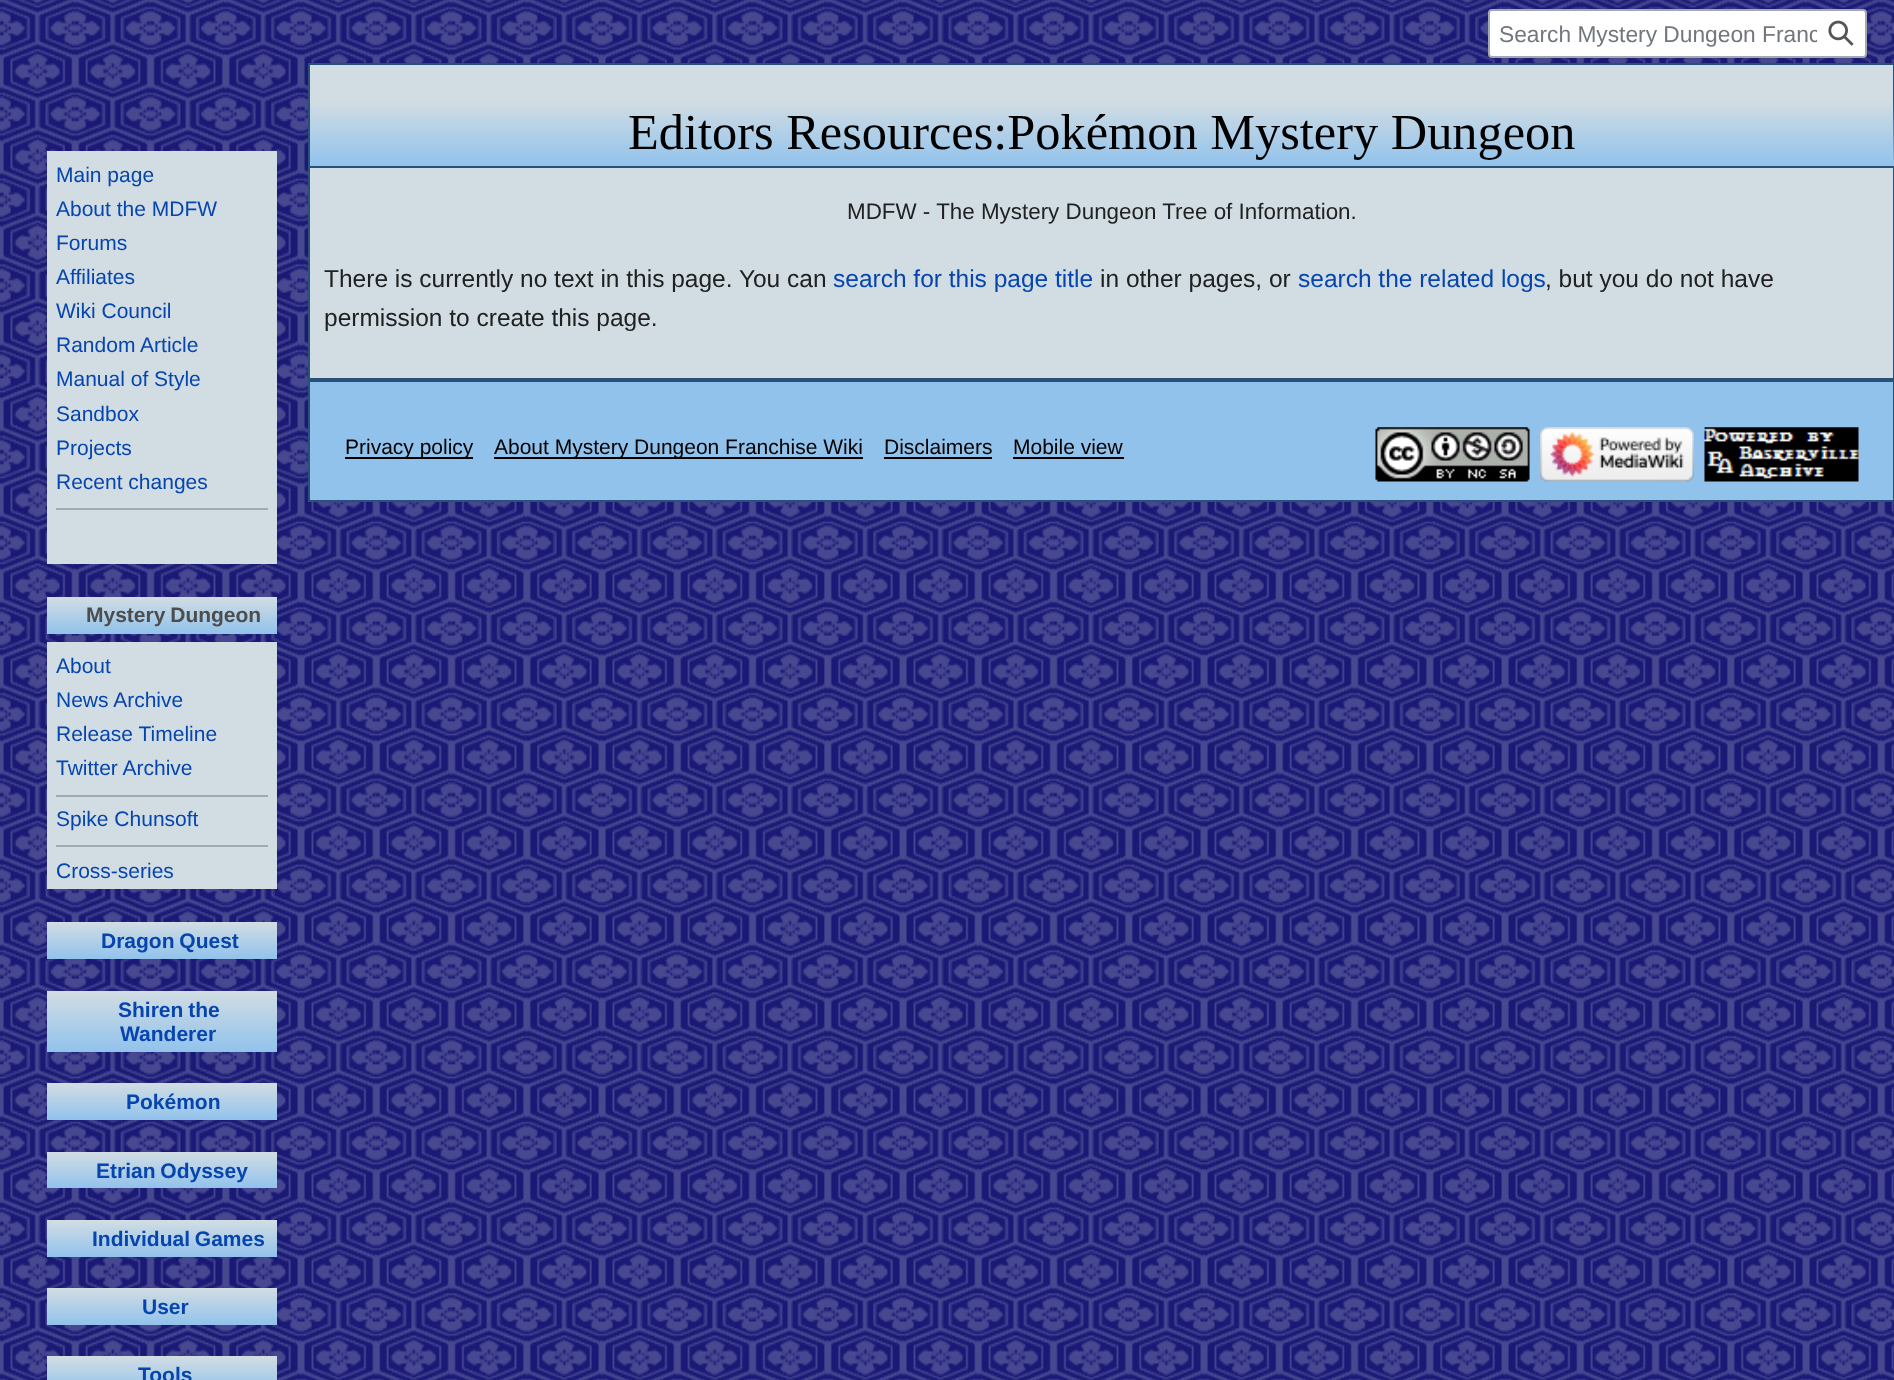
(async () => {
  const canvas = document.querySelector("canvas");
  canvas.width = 1894;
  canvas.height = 1380;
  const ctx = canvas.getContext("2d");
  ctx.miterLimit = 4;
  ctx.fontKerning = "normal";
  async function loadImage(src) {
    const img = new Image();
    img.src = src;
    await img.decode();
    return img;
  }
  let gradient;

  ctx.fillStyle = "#ffffff";
  ctx.fillRect(0, 0, 1894, 1380);
  ctx.drawImage(await loadImage("img/1.png"), 0, 0, 1894, 1380);
  ctx.beginPath();
  ctx.roundRect(1489, 10, 377, 47, 3);
  ctx.fill();
  ctx.strokeStyle = "#a2a9b1";
  ctx.lineWidth = 2;
  ctx.stroke();
  ctx.drawImage(await loadImage("img/2.png"), 1828, 20, 26, 26);
  ctx.fillStyle = "#d2dde3";
  ctx.fillRect(47, 151, 230, 413);
  ctx.fillStyle = "#a2a9b1";
  ctx.fillRect(56, 508, 212, 2);
  gradient = ctx.createLinearGradient(162, 597, 162, 634);
  gradient.addColorStop(0, "#d2dde3");
  gradient.addColorStop(1, "#91c2ec");
  ctx.fillStyle = gradient;
  ctx.fillRect(47, 597, 230, 37);
  for (const [x, y, w, h, color] of [
    [47, 642, 230, 247, "#d2dde3"],
    [56, 795, 212, 2, "#a2a9b1"],
    [56, 845, 212, 2, "#a2a9b1"],
  ]) {
    ctx.fillStyle = color;
    ctx.fillRect(x, y, w, h);
  }
  gradient = ctx.createLinearGradient(162, 922, 162, 959);
  gradient.addColorStop(0, "#d2dde3");
  gradient.addColorStop(1, "#91c2ec");
  ctx.fillStyle = gradient;
  ctx.fillRect(47, 922, 230, 37);
  gradient = ctx.createLinearGradient(162, 991, 162, 1052);
  gradient.addColorStop(0, "#d2dde3");
  gradient.addColorStop(1, "#91c2ec");
  ctx.fillStyle = gradient;
  ctx.fillRect(47, 991, 230, 61);
  gradient = ctx.createLinearGradient(162, 1083, 162, 1120);
  gradient.addColorStop(0, "#d2dde3");
  gradient.addColorStop(1, "#91c2ec");
  ctx.fillStyle = gradient;
  ctx.fillRect(47, 1083, 230, 37);
  gradient = ctx.createLinearGradient(162, 1152, 162, 1188);
  gradient.addColorStop(0, "#d2dde3");
  gradient.addColorStop(1, "#91c2ec");
  ctx.fillStyle = gradient;
  ctx.fillRect(47, 1152, 230, 36);
  gradient = ctx.createLinearGradient(162, 1220, 162, 1257);
  gradient.addColorStop(0, "#d2dde3");
  gradient.addColorStop(1, "#91c2ec");
  ctx.fillStyle = gradient;
  ctx.fillRect(47, 1220, 230, 37);
  gradient = ctx.createLinearGradient(162, 1288, 162, 1325);
  gradient.addColorStop(0, "#d2dde3");
  gradient.addColorStop(1, "#91c2ec");
  ctx.fillStyle = gradient;
  ctx.fillRect(47, 1288, 230, 37);
  gradient = ctx.createLinearGradient(162, 1356, 162, 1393);
  gradient.addColorStop(0, "#d2dde3");
  gradient.addColorStop(1, "#91c2ec");
  ctx.fillStyle = gradient;
  ctx.fillRect(47, 1356, 230, 24);
  ctx.fillStyle = "#d2dde3";
  ctx.beginPath();
  ctx.rect(309, 64, 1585, 315);
  ctx.fill();
  ctx.strokeStyle = "#275178";
  ctx.stroke();
  gradient = ctx.createLinearGradient(1102, 100, 1102, 166);
  gradient.addColorStop(0, "rgba(145, 194, 236, 0)");
  gradient.addColorStop(1, "#91c2ec");
  ctx.fillStyle = gradient;
  ctx.fillRect(310, 102, 1584, 64);
  ctx.fillStyle = "#275178";
  ctx.fillRect(310, 166, 1584, 2);
  ctx.fillStyle = "#91c2ec";
  ctx.beginPath();
  ctx.rect(309, 381, 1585, 120);
  ctx.fill();
  ctx.stroke();
  for (const [x, y, w, h, color] of [
    [345, 457, 128, 2, "#000000"],
    [494, 457, 369, 2, "#000000"],
    [884, 457, 108, 2, "#000000"],
    [1013, 457, 111, 2, "#000000"],
  ]) {
    ctx.fillStyle = color;
    ctx.fillRect(x, y, w, h);
  }
  ctx.drawImage(await loadImage("img/3.png"), 1375, 427, 155, 55);
  ctx.drawImage(await loadImage("img/4.png"), 1540, 427, 154, 55);
  ctx.drawImage(await loadImage("img/5.png"), 1704, 427, 155, 55);
  ctx.save();
  ctx.beginPath();
  ctx.rect(1500, 21, 317, 26);
  ctx.clip();
  ctx.font = "22.75px Liberation Sans";
  ctx.fillStyle = "#72777d";
  ctx.fillText("Search Mystery Dungeon Franc", 1499, 42);
  ctx.restore();
  ctx.font = "21px Liberation Sans";
  ctx.fillStyle = "#0645ad";
  for (const [text, x, y] of [
    ["Main page", 56, 182],
    ["About the MDFW", 56, 216],
    ["Forums", 56, 250],
    ["Affiliates", 56, 284],
    ["Wiki Council", 56, 318],
    ["Random Article", 56, 352],
    ["Manual of Style", 56, 386],
    ["Sandbox", 56, 421],
    ["Projects", 56, 455],
    ["Recent changes", 56, 489],
  ]) {
    ctx.fillText(text, x, y);
  }
  ctx.wordSpacing = "-1px";
  ctx.font = "bold 21px Liberation Sans";
  ctx.fillStyle = "#4d4d4d";
  ctx.fillText("Mystery Dungeon", 86, 622);
  ctx.wordSpacing = "0px";
  ctx.font = "21px Liberation Sans";
  ctx.fillStyle = "#0645ad";
  for (const [text, x, y] of [
    ["About", 56, 673],
    ["News Archive", 56, 707],
    ["Release Timeline", 56, 741],
    ["Twitter Archive", 56, 775],
    ["Spike Chunsoft", 56, 826],
    ["Cross-series", 56, 878],
  ]) {
    ctx.fillText(text, x, y);
  }
  ctx.wordSpacing = "-1px";
  ctx.font = "bold 21px Liberation Sans";
  ctx.fillText("Dragon Quest", 101, 948);
  ctx.fillText("Shiren the", 118, 1017);
  ctx.wordSpacing = "0px";
  ctx.fillText("Wanderer", 120, 1041);
  ctx.fillText("Pokémon", 126, 1109);
  ctx.wordSpacing = "-1px";
  ctx.fillText("Etrian Odyssey", 96, 1178);
  ctx.fillText("Individual Games", 92, 1246);
  ctx.wordSpacing = "0px";
  ctx.fillText("User", 142, 1314);
  ctx.fillText("Tools", 138, 1382);
  ctx.font = "50.4px Liberation Serif";
  ctx.fillStyle = "#000000";
  ctx.fillText("Editors Resources:Pokémon Mystery Dungeon", 628, 149);
  ctx.font = "22.4px Liberation Sans";
  ctx.fillStyle = "#202122";
  ctx.fillText("MDFW - The Mystery Dungeon Tree of Information.", 847, 219);
  ctx.font = "24.5px Liberation Sans";
  ctx.fillText("There is currently no text in this page. You can", 324, 287);
  ctx.fillStyle = "#0645ad";
  ctx.fillText("search for this page title", 833, 287);
  ctx.fillStyle = "#202122";
  ctx.fillText("in other pages, or", 1100, 287);
  ctx.fillStyle = "#0645ad";
  ctx.fillText("search the related logs", 1298, 287);
  ctx.fillStyle = "#202122";
  ctx.fillText(", but you do not have", 1545, 287);
  ctx.fillText("permission to create this page.", 324, 326);
  ctx.font = "21px Liberation Sans";
  ctx.fillStyle = "#000000";
  for (const [text, x, y] of [
    ["Privacy policy", 345, 454],
    ["About Mystery Dungeon Franchise Wiki", 494, 454],
    ["Disclaimers", 884, 454],
    ["Mobile view", 1013, 454],
  ]) {
    ctx.fillText(text, x, y);
  }
})();
